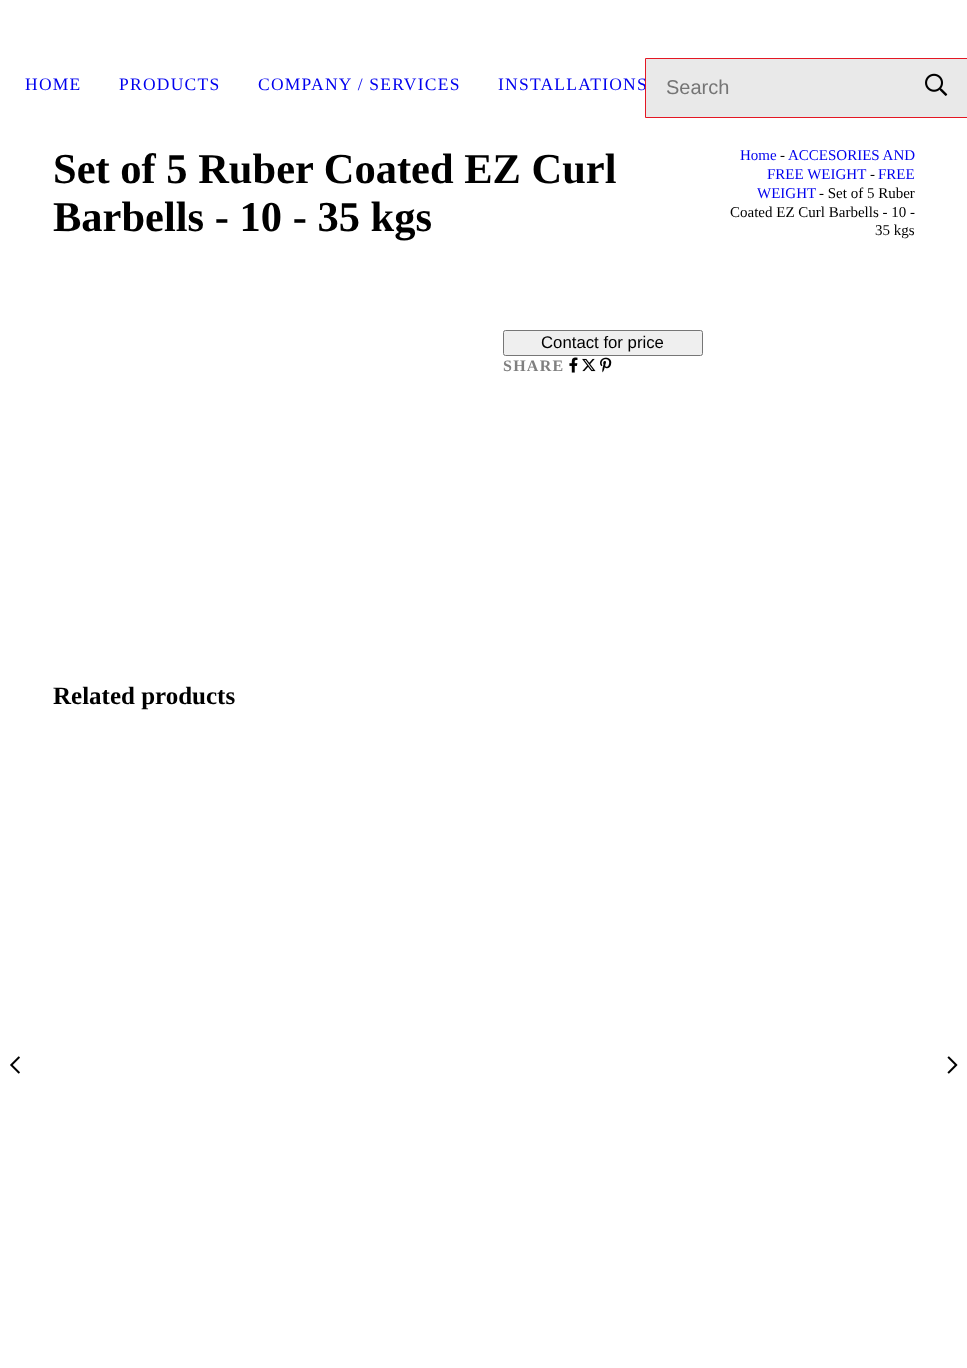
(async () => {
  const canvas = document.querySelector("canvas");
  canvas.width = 967;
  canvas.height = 1368;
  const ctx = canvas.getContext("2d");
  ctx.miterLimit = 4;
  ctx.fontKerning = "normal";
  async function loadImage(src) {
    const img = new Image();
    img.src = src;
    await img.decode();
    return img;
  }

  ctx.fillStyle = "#ffffff";
  ctx.fillRect(0, 0, 967, 1368);
  ctx.fillStyle = "#efefef";
  ctx.beginPath();
  ctx.roundRect(503.5, 330.5, 199, 25, 2);
  ctx.fill();
  ctx.strokeStyle = "#767676";
  ctx.stroke();
  ctx.drawImage(await loadImage("img/2.png"), 569, 357, 9, 16);
  ctx.drawImage(await loadImage("img/3.png"), 582, 358, 14, 14);
  ctx.drawImage(await loadImage("img/4.png"), 600, 357, 12, 16);
  ctx.drawImage(await loadImage("img/5.png"), 10, 1056, 10, 18);
  ctx.drawImage(await loadImage("img/6.png"), 947, 1056, 11, 18);
  ctx.letterSpacing = "1.25px";
  ctx.font = "17.5px Liberation Serif";
  ctx.fillStyle = "#0000ee";
  for (const [text, x, y] of [
    ["HOME", 25, 90],
    ["PRODUCTS", 119, 90],
    ["COMPANY / SERVICES", 258, 90],
    ["INSTALLATIONS", 498, 90],
  ]) {
    ctx.fillText(text, x, y);
  }
  ctx.fillStyle = "#e9e9e9";
  ctx.beginPath();
  ctx.rect(645.5, 58.5, 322, 59);
  ctx.fill();
  ctx.strokeStyle = "#e41723";
  ctx.stroke();
  ctx.letterSpacing = "0px";
  ctx.font = "20px Liberation Sans";
  ctx.fillStyle = "#757575";
  ctx.fillText("Search", 666, 94);
  ctx.drawImage(await loadImage("img/1.png"), 925, 73, 23, 23);
  ctx.font = "bold 42.5px Liberation Serif";
  ctx.fillStyle = "#000000";
  ctx.fillText("Set of 5 Ruber Coated EZ Curl", 53, 183);
  ctx.fillText("Barbells - 10 - 35 kgs", 53, 231);
  ctx.font = "15px Liberation Serif";
  ctx.fillStyle = "#0000ee";
  ctx.fillText("Home", 740, 160);
  ctx.fillStyle = "#000000";
  ctx.fillText("-", 780, 160);
  ctx.fillStyle = "#0000ee";
  ctx.fillText("ACCESORIES AND", 788, 160);
  ctx.fillText("FREE WEIGHT", 767, 179);
  ctx.fillStyle = "#000000";
  ctx.fillText("-", 870, 179);
  ctx.fillStyle = "#0000ee";
  ctx.fillText("FREE", 878, 179);
  ctx.fillText("WEIGHT", 757, 198);
  ctx.fillStyle = "#000000";
  for (const [text, x, y] of [
    ["- Set of 5 Ruber", 819, 198],
    ["Coated EZ Curl Barbells - 10 -", 730, 217],
    ["35 kgs", 875, 235],
  ]) {
    ctx.fillText(text, x, y);
  }
  ctx.font = "16.75px Liberation Sans";
  ctx.fillText("Contact for price", 541, 348);
  ctx.letterSpacing = "1.25px";
  ctx.font = "bold 16px Liberation Serif";
  ctx.fillStyle = "#808080";
  ctx.fillText("SHARE", 503, 371);
  ctx.letterSpacing = "0px";
  ctx.font = "bold 25px Liberation Serif";
  ctx.fillStyle = "#000000";
  ctx.fillText("Related products", 53, 704);
})();
